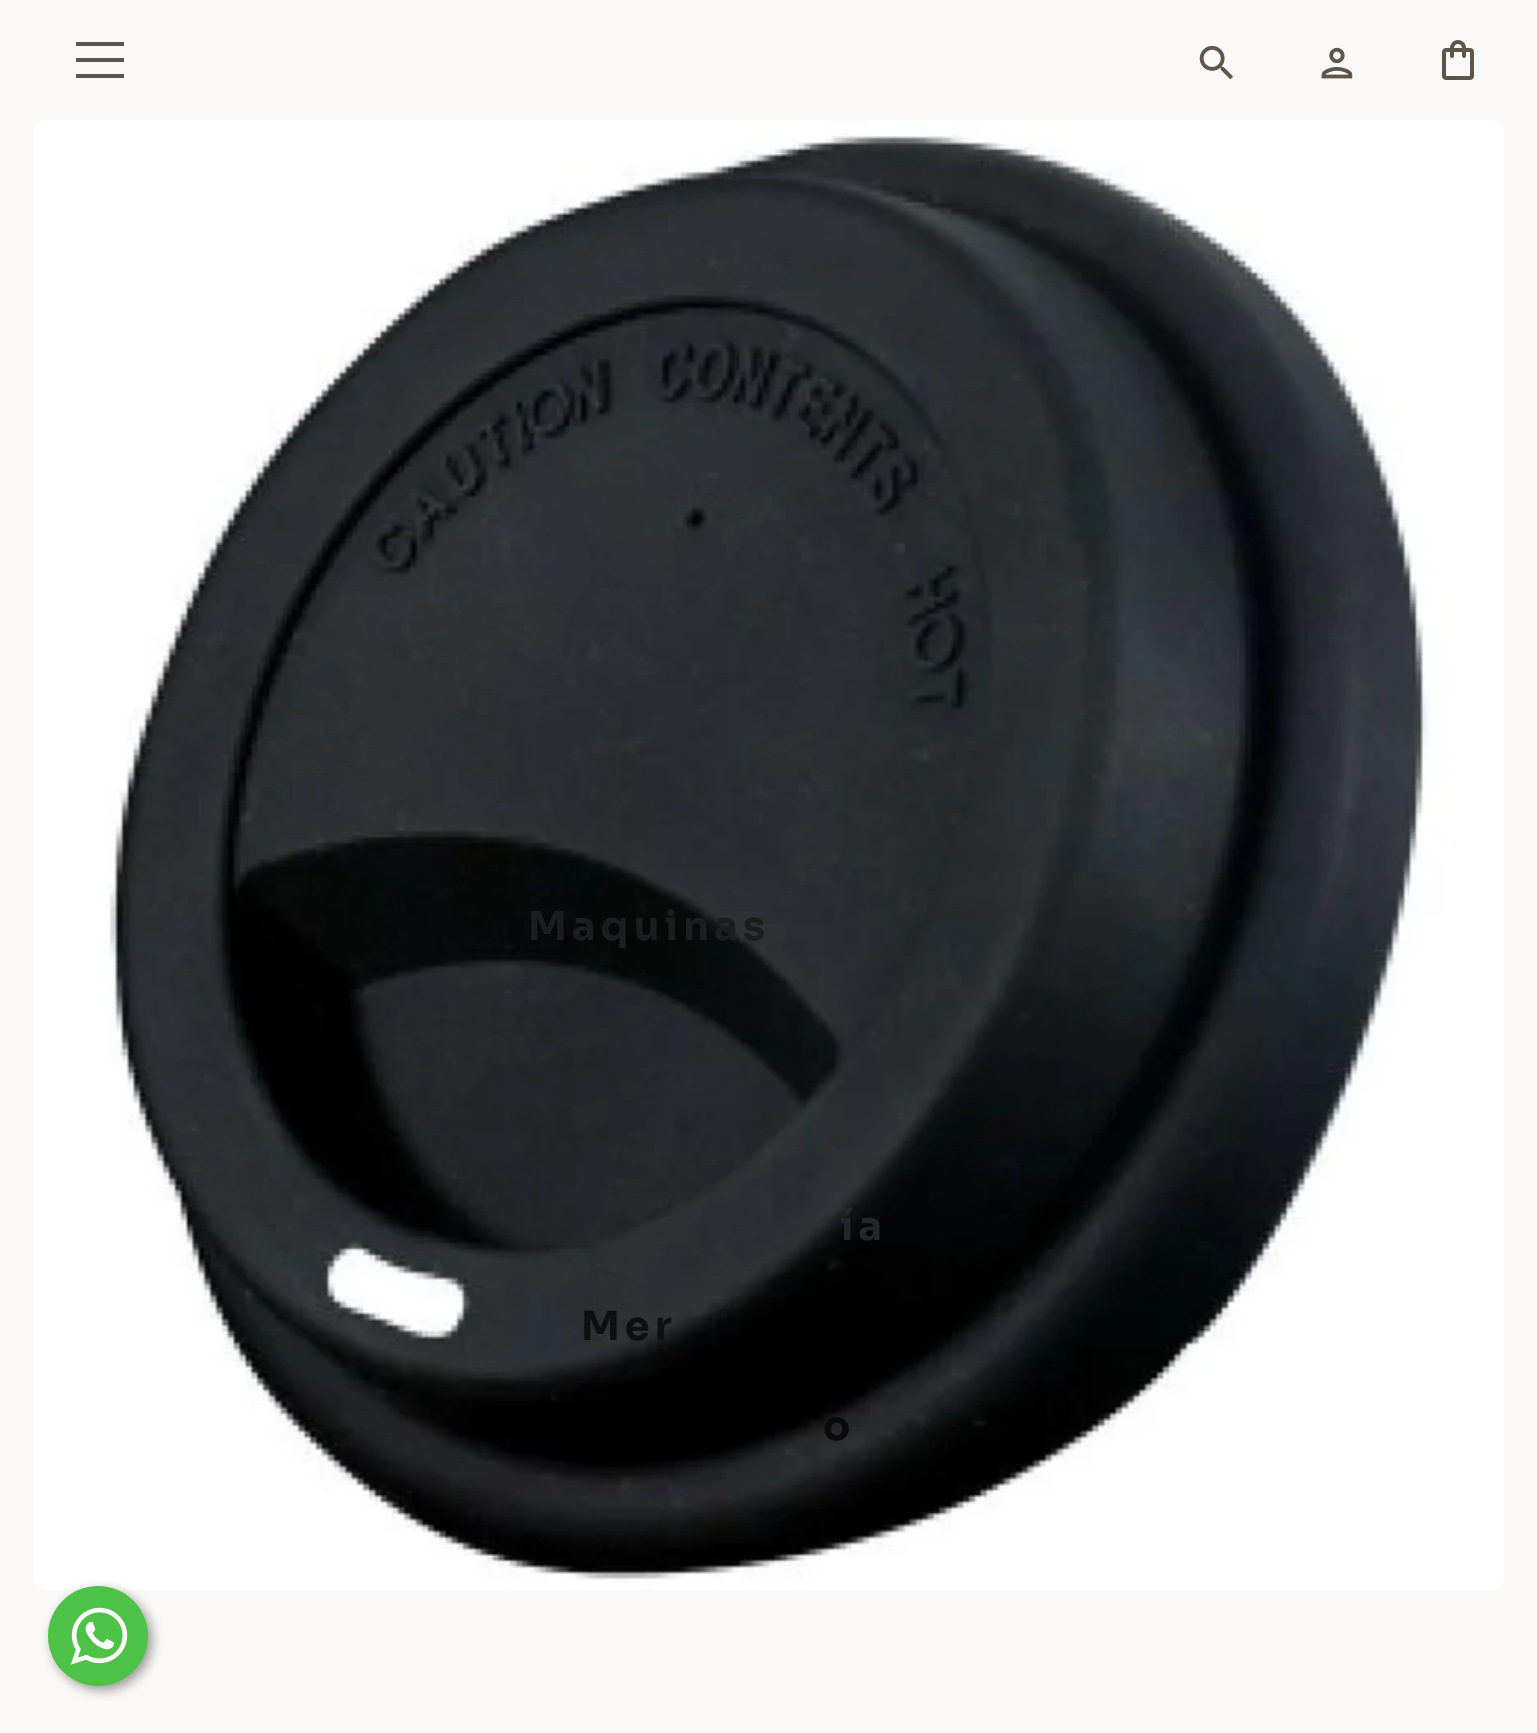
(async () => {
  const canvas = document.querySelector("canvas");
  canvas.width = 1537;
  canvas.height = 1733;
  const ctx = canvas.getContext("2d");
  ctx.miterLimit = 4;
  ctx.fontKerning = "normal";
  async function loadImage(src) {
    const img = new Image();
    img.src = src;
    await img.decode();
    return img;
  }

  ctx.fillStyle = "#faf9f7";
  ctx.fillRect(0, 0, 1537, 1733);
  ctx.drawImage(await loadImage("img/1.png"), 34, 120, 1470, 1470);
  ctx.drawImage(await loadImage("img/2.png"), 1199, 45, 35, 35);
  ctx.drawImage(await loadImage("img/3.png"), 1321, 47, 32, 32);
  ctx.drawImage(await loadImage("img/4.png"), 1442, 40, 32, 40);
  for (const [x, y, w, h, color] of [
    [76, 42, 48, 4, "#5e5749"],
    [76, 58, 48, 4, "#5e5749"],
    [76, 74, 48, 4, "#5e5749"],
  ]) {
    ctx.fillStyle = color;
    ctx.fillRect(x, y, w, h);
  }
  ctx.fillStyle = "rgba(0, 0, 0, 0.4)";
  ctx.filter = "blur(6px)";
  ctx.beginPath();
  ctx.roundRect(52, 1590, 100, 100, 50);
  ctx.fill();
  ctx.filter = "none";
  ctx.fillStyle = "#4dc247";
  ctx.beginPath();
  ctx.arc(98, 1636, 50, 0, Math.PI * 2);
  ctx.fill();
  ctx.drawImage(await loadImage("img/5.png"), 70, 1607, 58, 58);
  ctx.letterSpacing = "5px";
  ctx.font = "bold 40px Sora";
  ctx.fillStyle = "#1a1e20";
  ctx.fillText("Maquinas", 528, 940);
  ctx.fillStyle = "#23272a";
  ctx.fillText("ía", 840, 1240);
  ctx.fillStyle = "#0e0f11";
  ctx.fillText("Mer", 581, 1340);
  ctx.fillStyle = "#0a0a0b";
  ctx.fillText("o", 823, 1440);
})();
